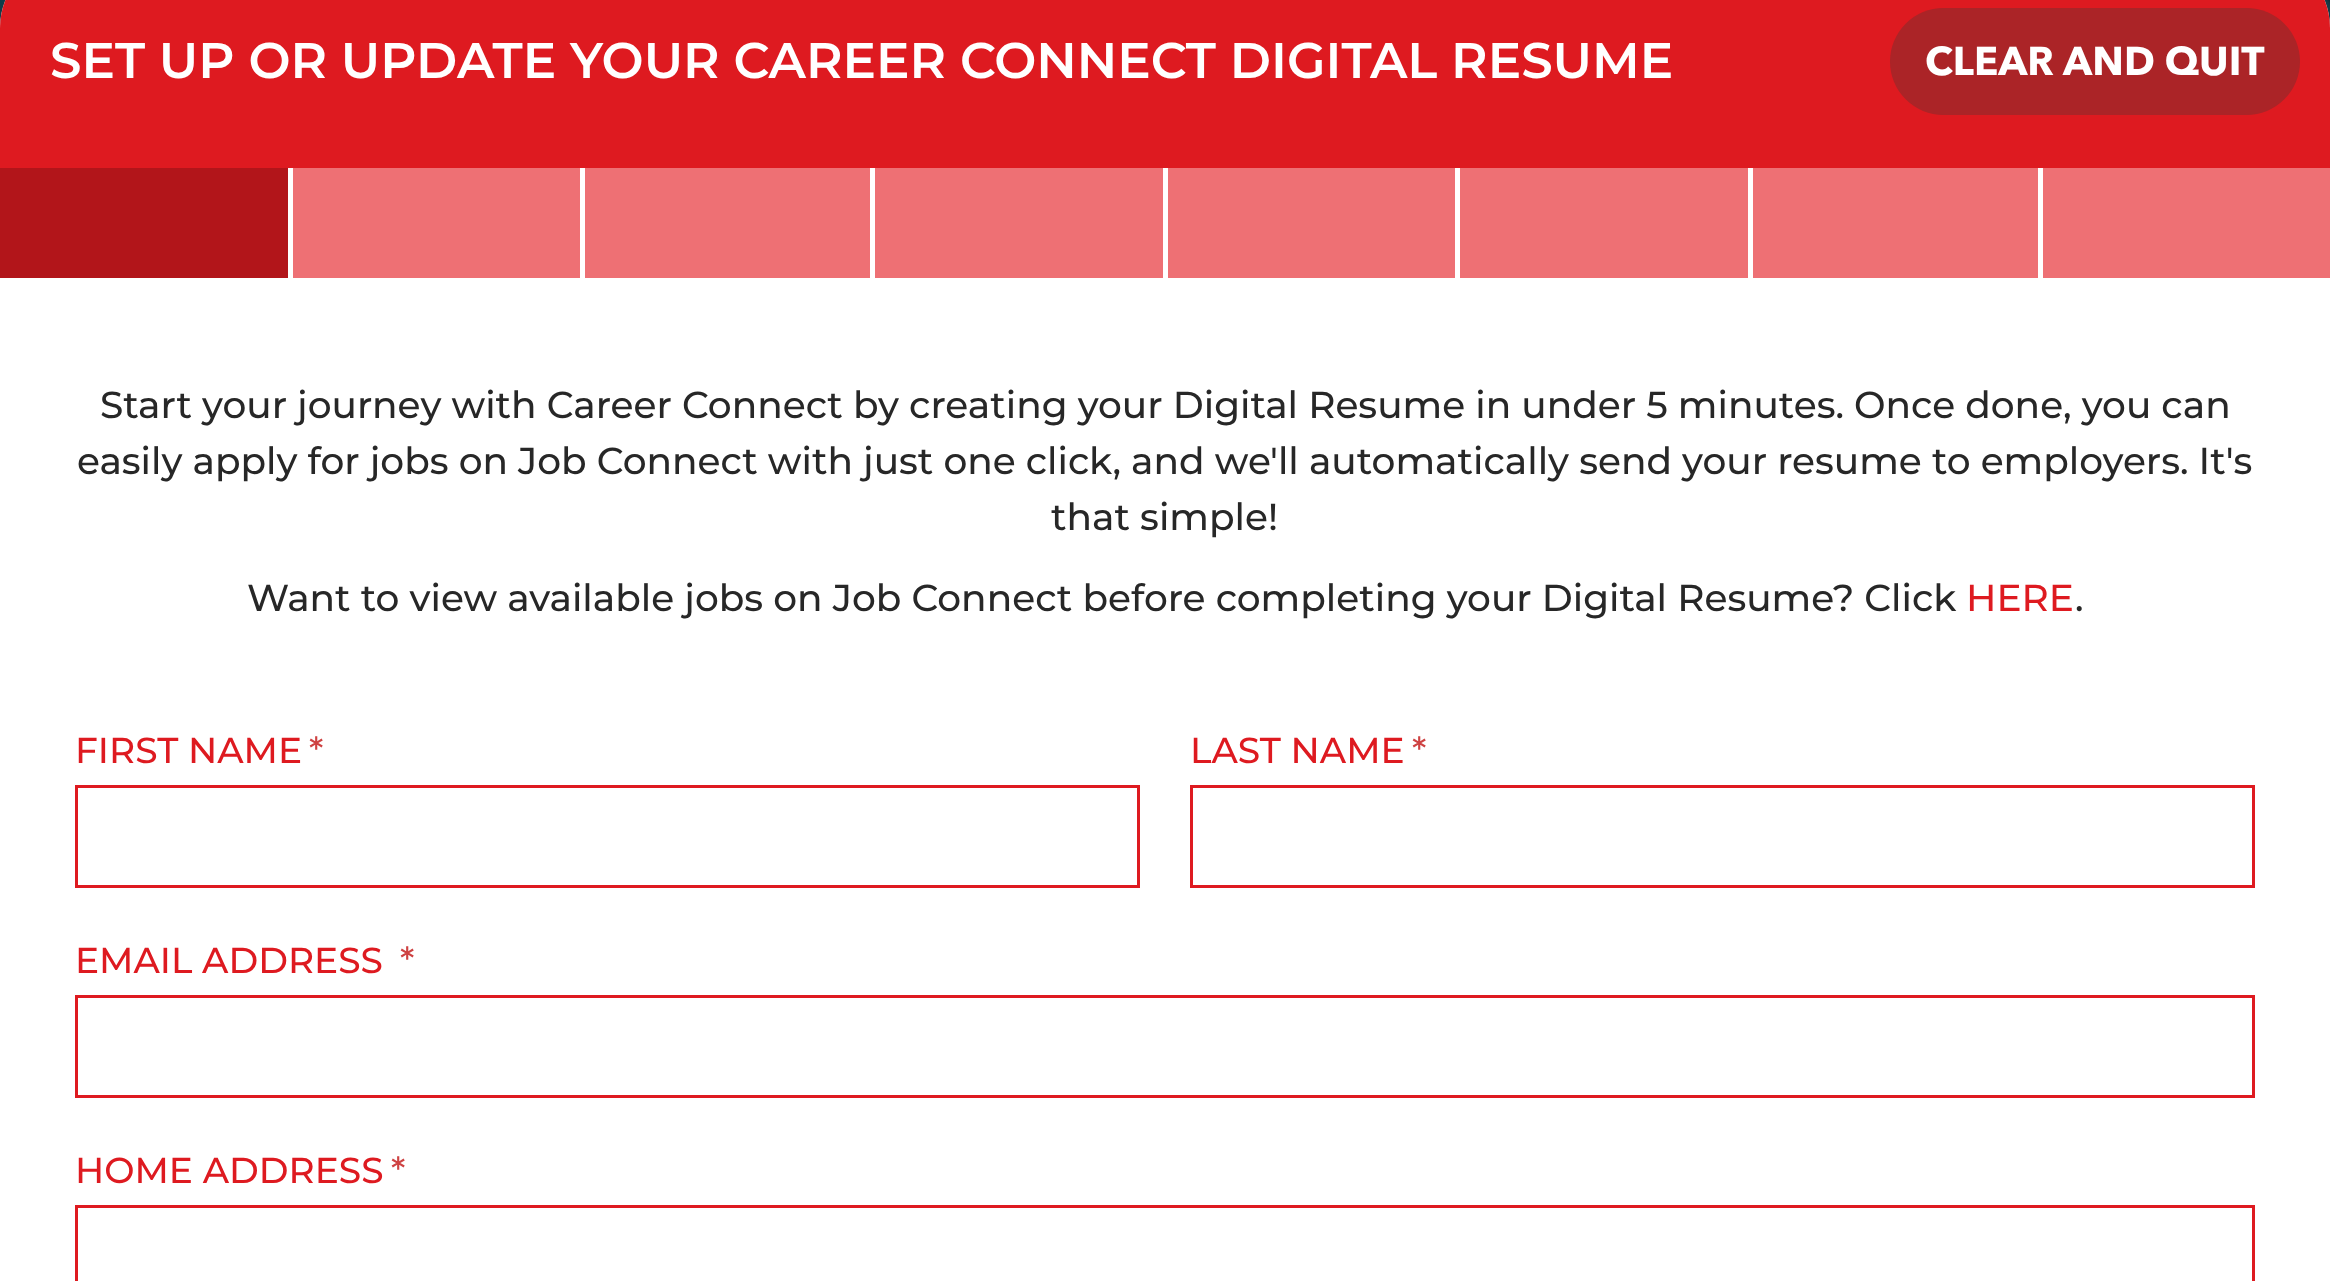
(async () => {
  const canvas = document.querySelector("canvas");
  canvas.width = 2330;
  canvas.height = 1281;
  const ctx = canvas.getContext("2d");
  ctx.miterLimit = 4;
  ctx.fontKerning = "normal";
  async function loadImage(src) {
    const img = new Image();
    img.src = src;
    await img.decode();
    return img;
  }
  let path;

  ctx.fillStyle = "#ffffff";
  ctx.fillRect(0, 0, 2330, 1281);
  ctx.drawImage(await loadImage("img/1.png"), 0, 0, 2330, 28);
  path = new Path2D("M75-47H2255C2296.5-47 2330-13.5 2330 28V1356H0V28C0-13.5 33.5-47 75-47Z");
  ctx.fill(path);
  ctx.fillStyle = "#de1a20";
  path = new Path2D("M75-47H2255C2296.5-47 2330-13.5 2330 28V278H0V28C0-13.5 33.5-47 75-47Z");
  ctx.fill(path);
  ctx.fillStyle = "#ab2427";
  ctx.beginPath();
  ctx.roundRect(1890, 8, 410, 107, 53.5);
  ctx.fill();
  for (const [x, y, w, h, color] of [
    [0, 168, 288, 110, "#b2151a"],
    [293, 168, 287, 110, "#ee7074"],
    [288, 168, 5, 110, "#ffffff"],
    [585, 168, 285, 110, "#ee7074"],
    [580, 168, 5, 110, "#ffffff"],
    [875, 168, 288, 110, "#ee7074"],
    [870, 168, 5, 110, "#ffffff"],
    [1168, 168, 287, 110, "#ee7074"],
    [1163, 168, 5, 110, "#ffffff"],
    [1460, 168, 288, 110, "#ee7074"],
    [1455, 168, 5, 110, "#ffffff"],
    [1753, 168, 285, 110, "#ee7074"],
    [1748, 168, 5, 110, "#ffffff"],
    [2043, 168, 287, 110, "#ee7074"],
    [2038, 168, 5, 110, "#ffffff"],
  ]) {
    ctx.fillStyle = color;
    ctx.fillRect(x, y, w, h);
  }
  ctx.strokeStyle = "#de1a20";
  ctx.lineWidth = 3;
  ctx.strokeRect(76.5, 786.5, 1062, 100);
  ctx.strokeRect(1191.5, 786.5, 1062, 100);
  ctx.strokeRect(76.5, 996.5, 2177, 100);
  ctx.strokeRect(76.5, 1206.5, 2177, 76);
  ctx.font = "600 50px Montserrat";
  ctx.fillText("SET UP OR UPDATE YOUR CAREER CONNECT DIGITAL RESUME", 50, 78);
  ctx.font = "bold 40px Avenir Next";
  ctx.fillText("CLEAR AND QUIT", 1925, 75);
  ctx.font = "500 37.5px Montserrat";
  ctx.fillStyle = "#272727";
  for (const [text, x, y] of [
    ["Start your journey with Career Connect by creating your Digital Resume in under 5 minutes. Once done, you can", 100, 418],
    ["easily apply for jobs on Job Connect with just one click, and we'll automatically send your resume to employers. It's", 77, 474],
    ["that simple!", 1051, 530],
    ["Want to view available jobs on Job Connect before completing your Digital Resume? Click", 247, 611],
  ]) {
    ctx.fillText(text, x, y);
  }
  ctx.fillStyle = "#de1a20";
  ctx.fillText("HERE", 1966, 611);
  ctx.fillStyle = "#272727";
  ctx.fillText(".", 2075, 611);
  ctx.font = "500 36px Montserrat";
  ctx.fillStyle = "#de1a20";
  ctx.fillText("FIRST NAME", 75, 763);
  ctx.fillStyle = "#ce4242";
  ctx.fillText("*", 309, 763);
  ctx.fillStyle = "#de1a20";
  ctx.fillText("LAST NAME", 1190, 763);
  ctx.fillStyle = "#ce4242";
  ctx.fillText("*", 1412, 763);
  ctx.fillStyle = "#de1a20";
  ctx.fillText("EMAIL ADDRESS", 75, 973);
  ctx.fillStyle = "#ce4242";
  ctx.fillText("*", 400, 973);
  ctx.fillStyle = "#de1a20";
  ctx.fillText("HOME ADDRESS", 75, 1183);
  ctx.fillStyle = "#ce4242";
  ctx.fillText("*", 391, 1183);
})();
